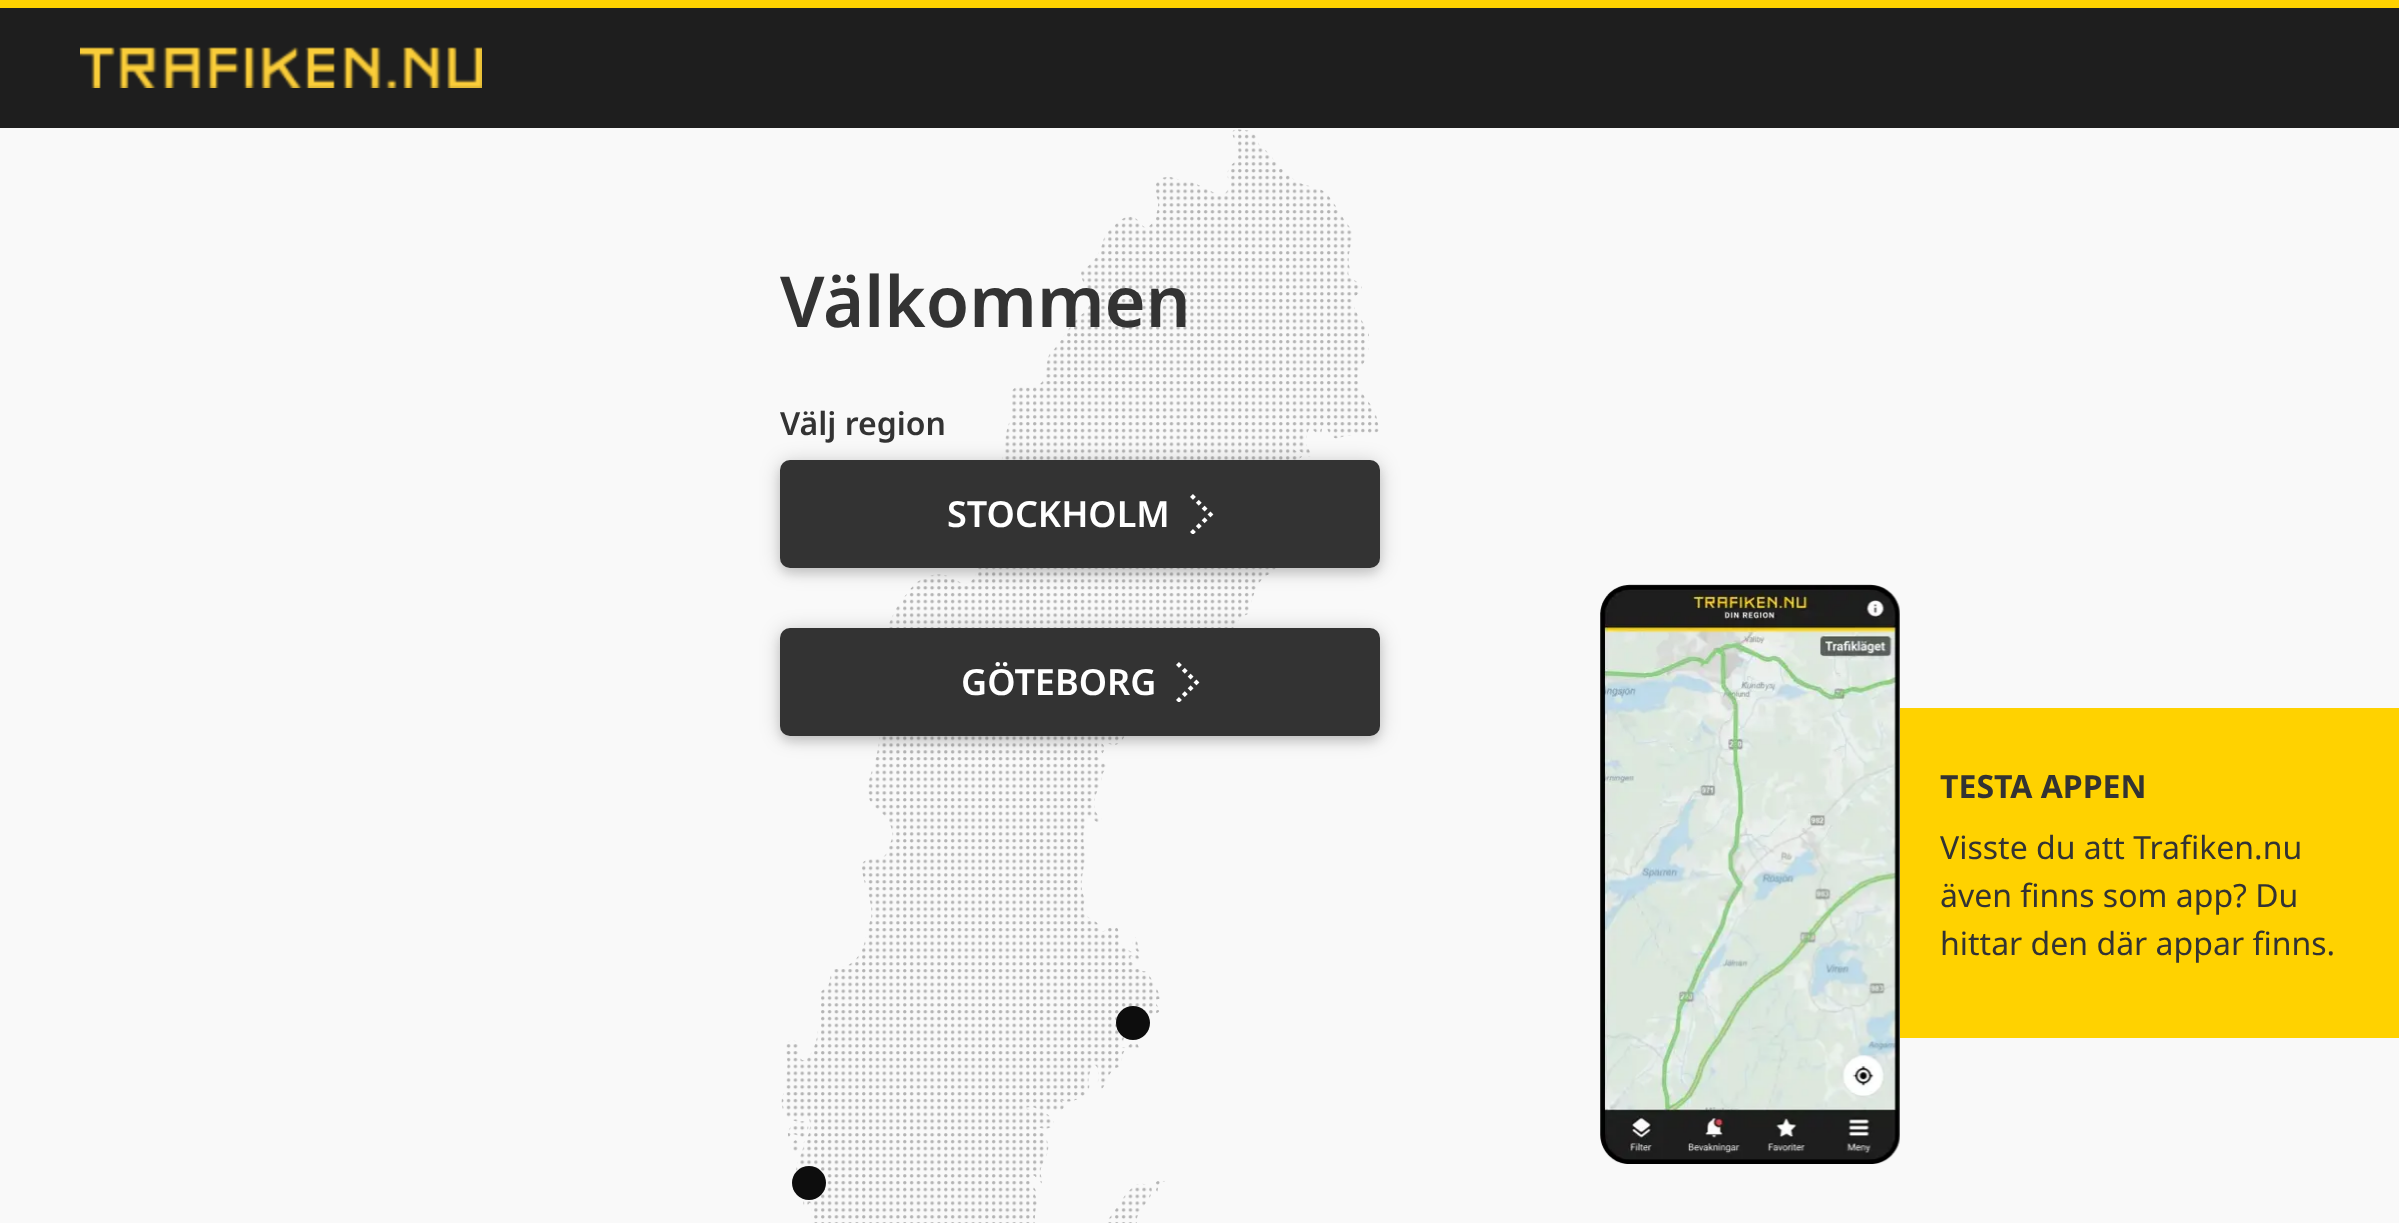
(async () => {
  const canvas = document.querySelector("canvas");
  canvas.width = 2399;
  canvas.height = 1223;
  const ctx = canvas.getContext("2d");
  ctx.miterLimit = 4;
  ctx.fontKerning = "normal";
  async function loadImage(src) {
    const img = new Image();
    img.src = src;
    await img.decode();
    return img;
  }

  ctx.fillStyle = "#f9f9f9";
  ctx.fillRect(0, 0, 2399, 1223);
  ctx.fillStyle = "#ffd200";
  ctx.fillRect(0, 0, 2399, 8);
  ctx.fillStyle = "#1e1e1e";
  ctx.fillRect(0, 8, 2399, 120);
  ctx.drawImage(await loadImage("img/1.png"), 80, 47, 402, 41);
  ctx.drawImage(await loadImage("img/2.png"), 781, 129, 598, 1094);
  ctx.fillStyle = "rgba(0, 0, 0, 0.19)";
  ctx.filter = "blur(10px)";
  ctx.beginPath();
  ctx.roundRect(780, 462, 600, 108, 10);
  ctx.fill();
  ctx.filter = "none";
  ctx.fillStyle = "rgba(0, 0, 0, 0.1)";
  ctx.filter = "blur(5px)";
  ctx.beginPath();
  ctx.roundRect(780, 466, 600, 108, 10);
  ctx.fill();
  ctx.filter = "none";
  ctx.fillStyle = "#333333";
  ctx.beginPath();
  ctx.roundRect(780, 460, 600, 108, 10);
  ctx.fill();
  ctx.drawImage(await loadImage("img/3.png"), 1190, 494, 24, 40);
  ctx.fillStyle = "rgba(0, 0, 0, 0.19)";
  ctx.filter = "blur(10px)";
  ctx.beginPath();
  ctx.roundRect(780, 630, 600, 108, 10);
  ctx.fill();
  ctx.filter = "none";
  ctx.fillStyle = "rgba(0, 0, 0, 0.1)";
  ctx.filter = "blur(5px)";
  ctx.beginPath();
  ctx.roundRect(780, 634, 600, 108, 10);
  ctx.fill();
  ctx.filter = "none";
  ctx.fillStyle = "#333333";
  ctx.beginPath();
  ctx.roundRect(780, 628, 600, 108, 10);
  ctx.fill();
  ctx.drawImage(await loadImage("img/3.png"), 1176, 662, 24, 40);
  ctx.fillStyle = "#0d0d0d";
  ctx.beginPath();
  ctx.arc(1133, 1023, 17, 0, Math.PI * 2);
  ctx.fill();
  ctx.beginPath();
  ctx.arc(809, 1183, 17, 0, Math.PI * 2);
  ctx.fill();
  ctx.drawImage(await loadImage("img/4.png"), 1600, 584, 300, 580);
  ctx.fillStyle = "#ffd200";
  ctx.fillRect(1900, 708, 499, 330);
  ctx.font = "600 70.5px Noto Sans";
  ctx.fillStyle = "#333333";
  ctx.fillText("Välkommen", 780, 327);
  ctx.font = "600 32px Noto Sans";
  ctx.fillText("Välj region", 780, 435);
  ctx.font = "600 36px Noto Sans";
  ctx.fillStyle = "#ffffff";
  ctx.fillText("STOCKHOLM", 947, 527);
  ctx.fillText("GÖTEBORG", 961, 695);
  ctx.font = "bold 32px Noto Sans";
  ctx.fillStyle = "#333333";
  ctx.fillText("TESTA APPEN", 1940, 798);
  ctx.font = "32px Noto Sans";
  for (const [text, x, y] of [
    ["Visste du att Trafiken.nu", 1940, 859],
    ["även finns som app? Du", 1940, 907],
    ["hittar den där appar finns.", 1940, 955],
  ]) {
    ctx.fillText(text, x, y);
  }
})();
